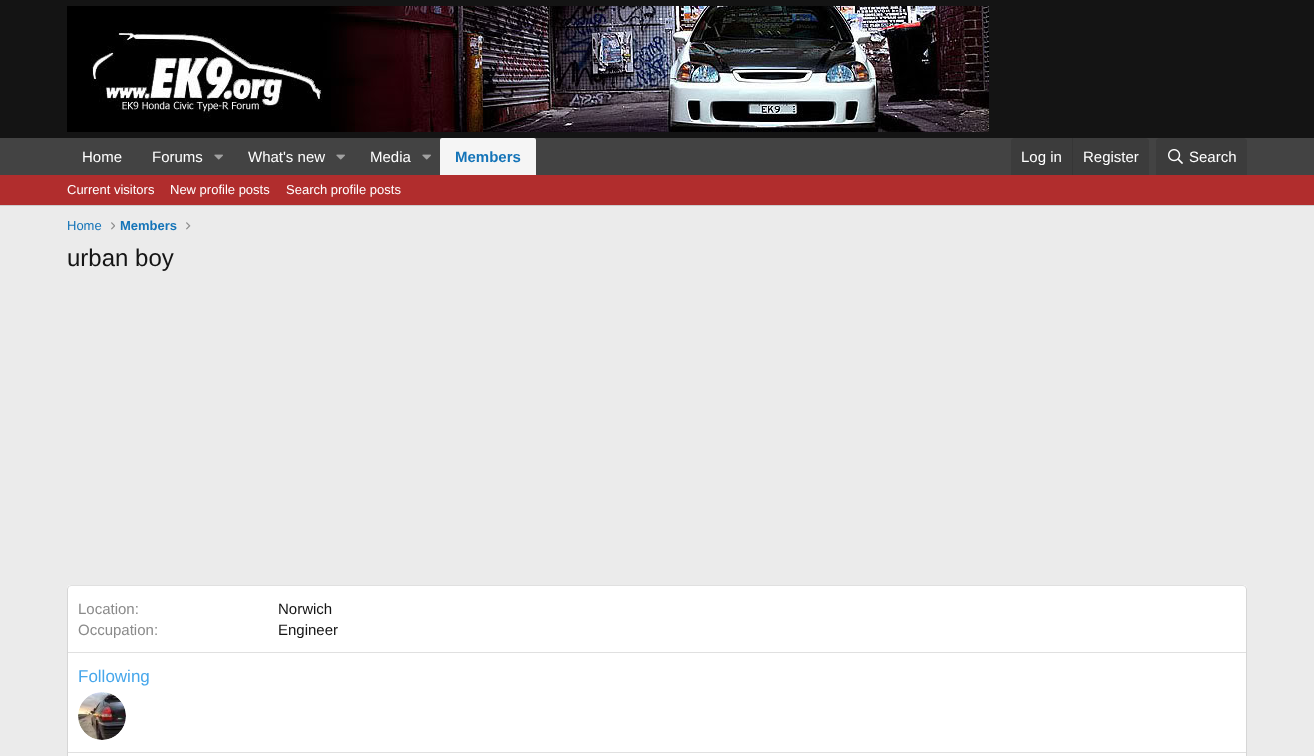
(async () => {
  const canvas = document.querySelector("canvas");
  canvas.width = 1314;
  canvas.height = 756;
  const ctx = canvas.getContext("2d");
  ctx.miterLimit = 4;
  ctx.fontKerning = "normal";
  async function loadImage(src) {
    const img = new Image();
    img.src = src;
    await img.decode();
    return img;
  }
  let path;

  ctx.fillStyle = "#ebebeb";
  ctx.fillRect(0, 0, 1314, 756);
  ctx.fillStyle = "#141414";
  ctx.fillRect(0, 0, 1314, 138);
  ctx.drawImage(await loadImage("img/1.png"), 67, 6, 922, 126);
  ctx.fillStyle = "#434343";
  ctx.fillRect(0, 138, 1314, 37);
  ctx.drawImage(await loadImage("img/2.png"), 214, 154, 9, 6);
  ctx.drawImage(await loadImage("img/2.png"), 336, 154, 9, 6);
  ctx.drawImage(await loadImage("img/2.png"), 422, 154, 9, 6);
  ctx.fillStyle = "#f5f5f5";
  ctx.beginPath();
  ctx.roundRect(440, 138, 96, 37, [2, 2, 0, 0]);
  ctx.fill();
  ctx.fillStyle = "#3c3c3c";
  ctx.beginPath();
  ctx.roundRect(1011, 138, 138, 37, [4, 4, 0, 0]);
  ctx.fill();
  ctx.fillStyle = "#363636";
  ctx.fillRect(1072, 138, 1, 37);
  ctx.fillStyle = "#3c3c3c";
  ctx.beginPath();
  ctx.roundRect(1156, 138, 91, 37, [4, 4, 0, 0]);
  ctx.fill();
  ctx.drawImage(await loadImage("img/3.png"), 1168, 149, 15, 15);
  ctx.fillStyle = "#b12d2d";
  ctx.fillRect(0, 175, 1314, 30);
  ctx.fillStyle = "#cccccc";
  ctx.fillRect(0, 205, 1314, 1);
  ctx.drawImage(await loadImage("img/4.png"), 111, 222, 4, 8);
  ctx.drawImage(await loadImage("img/5.png"), 186, 222, 5, 8);
  ctx.fillStyle = "#ffffff";
  ctx.beginPath();
  ctx.roundRect(67, 585, 1180, 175, 4);
  ctx.fill();
  path = new Path2D("M68.5 586.5L71 585.5H1243L1245.5 586.5");
  ctx.strokeStyle = "#e0e0e0";
  ctx.stroke(path);
  path = new Path2D("M1245.5 586.5L1246.5 589V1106L1245.5 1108.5");
  ctx.strokeStyle = "#d6d6d6";
  ctx.stroke(path);
  path = new Path2D("M68.5 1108.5L67.5 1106V589L68.5 586.5");
  ctx.stroke(path);
  ctx.fillStyle = "#e0e0e0";
  ctx.fillRect(68, 652, 1178, 1);
  ctx.drawImage(await loadImage("img/6.png"), 78, 692, 48, 48);
  ctx.fillRect(68, 752, 1178, 1);
  ctx.font = "15px Liberation Sans";
  ctx.fillStyle = "#ffffff";
  for (const [text, x, y] of [
    ["Home", 82, 162],
    ["Forums", 152, 162],
    ["What's new", 248, 162],
    ["Media", 370, 162],
  ]) {
    ctx.fillText(text, x, y);
  }
  ctx.font = "bold 15px Liberation Sans";
  ctx.fillStyle = "#1474b8";
  ctx.fillText("Members", 455, 162);
  ctx.font = "15px Liberation Sans";
  ctx.fillStyle = "#ffffff";
  for (const [text, x, y] of [
    ["Log in", 1021, 162],
    ["Register", 1083, 162],
    ["Search", 1189, 162],
  ]) {
    ctx.fillText(text, x, y);
  }
  ctx.font = "13px Liberation Sans";
  for (const [text, x, y] of [
    ["Current visitors", 67, 194],
    ["New profile posts", 170, 194],
    ["Search profile posts", 286, 194],
  ]) {
    ctx.fillText(text, x, y);
  }
  ctx.fillStyle = "#1474b8";
  ctx.fillText("Home", 67, 230);
  ctx.font = "bold 13px Liberation Sans";
  ctx.fillText("Members", 120, 230);
  ctx.font = "24px Liberation Sans";
  ctx.fillStyle = "#141414";
  ctx.fillText("urban boy", 67, 266);
  ctx.font = "15px Liberation Sans";
  ctx.fillStyle = "#8a8a8a";
  ctx.fillText("Location:", 78, 614);
  ctx.fillStyle = "#141414";
  ctx.fillText("Norwich", 278, 614);
  ctx.fillStyle = "#8a8a8a";
  ctx.fillText("Occupation:", 78, 635);
  ctx.fillStyle = "#141414";
  ctx.fillText("Engineer", 278, 635);
  ctx.font = "17px Liberation Sans";
  ctx.fillStyle = "#47a7eb";
  ctx.fillText("Following", 78, 682);
})();
